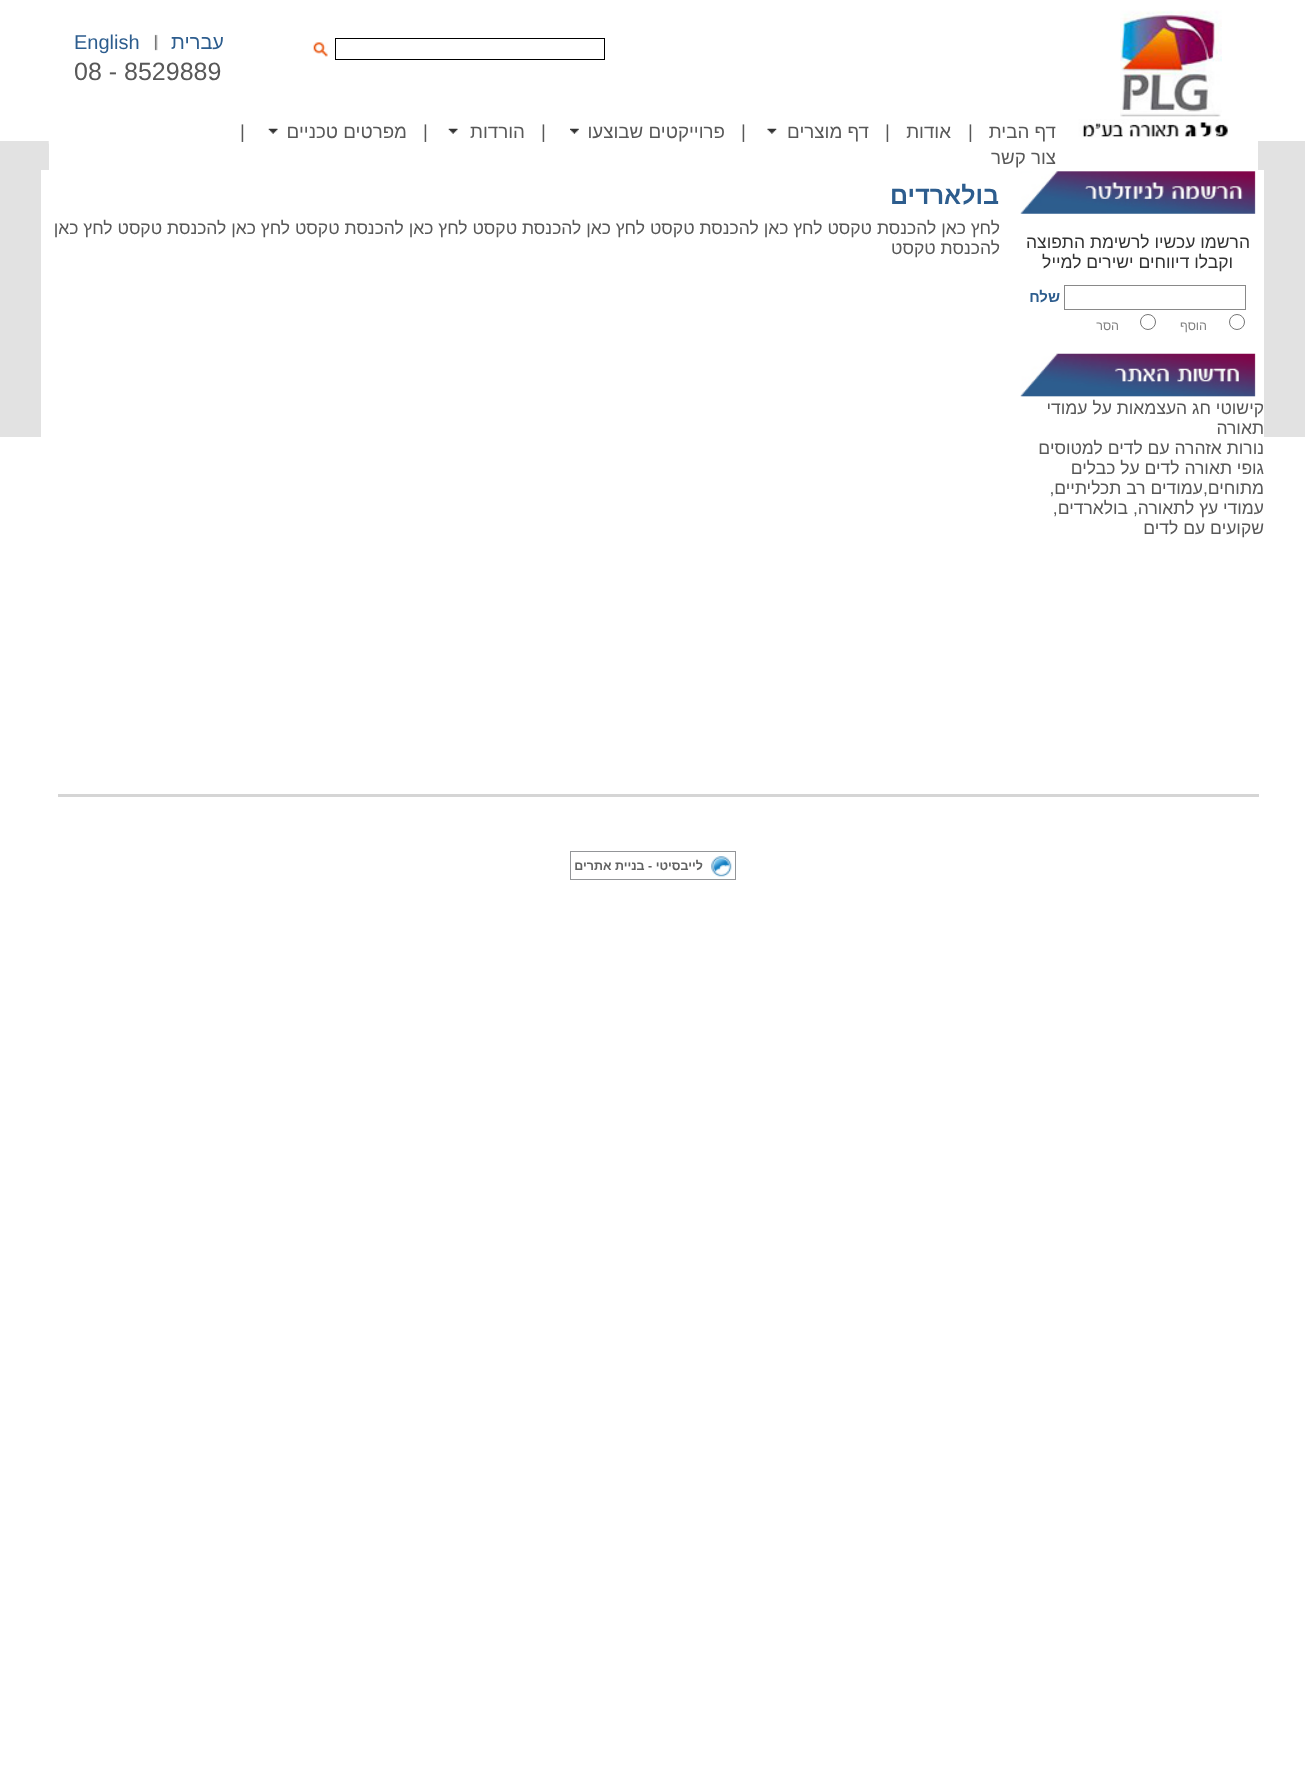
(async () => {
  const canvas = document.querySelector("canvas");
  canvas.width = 1305;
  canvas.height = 1772;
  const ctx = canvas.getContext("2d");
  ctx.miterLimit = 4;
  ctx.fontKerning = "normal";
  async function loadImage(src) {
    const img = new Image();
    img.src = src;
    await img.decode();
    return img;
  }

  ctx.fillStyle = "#ffffff";
  ctx.fillRect(0, 0, 1305, 1772);
  ctx.fillStyle = "#e2e2e2";
  ctx.fillRect(0, 141, 1305, 296);
  ctx.drawImage(await loadImage("img/1.png"), 1120, 10, 102, 107);
  ctx.strokeStyle = "#000000";
  ctx.strokeRect(335.5, 38.5, 269, 21);
  ctx.drawImage(await loadImage("img/2.png"), 313, 42, 15, 15);
  ctx.drawImage(await loadImage("img/3.png"), 154, 34, 4, 17);
  ctx.fillStyle = "#ffffff";
  ctx.fillRect(49, 141, 1209, 29);
  ctx.drawImage(await loadImage("img/4.png"), 48, 119, 1181, 25);
  ctx.drawImage(await loadImage("img/5.png"), 767, 128, 10, 6);
  ctx.drawImage(await loadImage("img/6.png"), 570, 128, 9, 6);
  ctx.drawImage(await loadImage("img/7.png"), 448, 128, 10, 6);
  ctx.drawImage(await loadImage("img/7.png"), 268, 128, 10, 6);
  ctx.fillRect(41, 170, 1223, 267);
  ctx.drawImage(await loadImage("img/8.png"), 1020, 171, 236, 43);
  ctx.strokeStyle = "#898989";
  ctx.strokeRect(1064.5, 285.5, 181, 24);
  ctx.beginPath();
  ctx.arc(1237, 322, 7.5, 0, Math.PI * 2);
  ctx.strokeStyle = "#767676";
  ctx.stroke();
  ctx.beginPath();
  ctx.arc(1148, 322, 7.5, 0, Math.PI * 2);
  ctx.stroke();
  ctx.drawImage(await loadImage("img/9.png"), 1020, 353, 236, 44);
  ctx.fillStyle = "#d5d5d5";
  ctx.fillRect(58, 794, 1201, 3);
  ctx.drawImage(await loadImage("img/10.png"), 711, 856, 21, 21);
  ctx.strokeStyle = "#939598";
  ctx.strokeRect(570.5, 851.5, 165, 28);
  ctx.direction = "rtl";
  ctx.font = "20px Liberation Sans";
  ctx.fillStyle = "#2d5d8e";
  ctx.fillText("עברית", 224, 49);
  ctx.direction = "ltr";
  ctx.fillText("English", 74, 49);
  ctx.fillStyle = "rgba(255, 255, 255, 0.25)";
  ctx.fillRect(103, 53, 2, 1);
  ctx.font = "25px Liberation Sans";
  ctx.fillStyle = "#585858";
  ctx.fillText("08 - 8529889", 74, 80);
  ctx.direction = "rtl";
  ctx.font = "18.75px Liberation Sans";
  ctx.fillText("דף הבית", 1056, 138);
  ctx.direction = "ltr";
  ctx.fillText("|", 968, 138);
  ctx.direction = "rtl";
  ctx.fillText("אודות", 951, 138);
  ctx.direction = "ltr";
  ctx.fillText("|", 885, 138);
  ctx.direction = "rtl";
  ctx.fillText("דף מוצרים", 869, 138);
  ctx.direction = "ltr";
  ctx.fillText("|", 741, 138);
  ctx.direction = "rtl";
  ctx.fillText("פרוייקטים שבוצעו", 725, 138);
  ctx.direction = "ltr";
  ctx.fillText("|", 541, 138);
  ctx.direction = "rtl";
  ctx.fillText("הורדות", 525, 138);
  ctx.direction = "ltr";
  ctx.fillText("|", 423, 138);
  ctx.direction = "rtl";
  ctx.fillText("מפרטים טכניים", 407, 138);
  ctx.direction = "ltr";
  ctx.fillText("|", 240, 138);
  ctx.direction = "rtl";
  ctx.fillText("צור קשר", 1056, 164);
  ctx.font = "bold 25px Liberation Sans";
  ctx.fillStyle = "#2d5d8e";
  ctx.fillText("בולארדים", 999, 204);
  ctx.font = "17.5px Liberation Sans";
  ctx.fillStyle = "#585858";
  ctx.fillText("לחץ כאן להכנסת טקסט לחץ כאן להכנסת טקסט לחץ כאן להכנסת טקסט לחץ כאן להכנסת טקסט לחץ כאן להכנסת טקסט לחץ כאן", 1000, 234);
  ctx.fillText("להכנסת טקסט", 1000, 254);
  ctx.fillStyle = "#333333";
  ctx.fillText("הרשמו עכשיו לרשימת התפוצה", 1250, 248);
  ctx.fillText("וקבלו דיווחים ישירים למייל", 1233, 268);
  ctx.font = "bold 15px Liberation Sans";
  ctx.fillStyle = "#2d5d8e";
  ctx.fillText("שלח", 1060, 302);
  ctx.font = "12.5px Liberation Sans";
  ctx.fillStyle = "#808080";
  ctx.fillText("הוסף", 1207, 330);
  ctx.fillText("הסר", 1119, 330);
  ctx.font = "17.5px Liberation Sans";
  ctx.fillStyle = "#585858";
  for (const [text, x, y] of [
    ["קישוטי חג העצמאות על עמודי", 1264, 414],
    ["תאורה", 1264, 434],
    ["נורות אזהרה עם לדים למטוסים", 1264, 454],
    ["גופי תאורה לדים על כבלים", 1264, 474],
    ["מתוחים,עמודים רב תכליתיים,", 1264, 494],
    ["עמודי עץ לתאורה, בולארדים,", 1264, 514],
    ["שקועים עם לדים", 1264, 534],
  ]) {
    ctx.fillText(text, x, y);
  }
  ctx.font = "bold 12.5px Liberation Sans";
  ctx.fillStyle = "#616262";
  ctx.fillText("לייבסיטי - בניית אתרים", 703, 870);
})();
